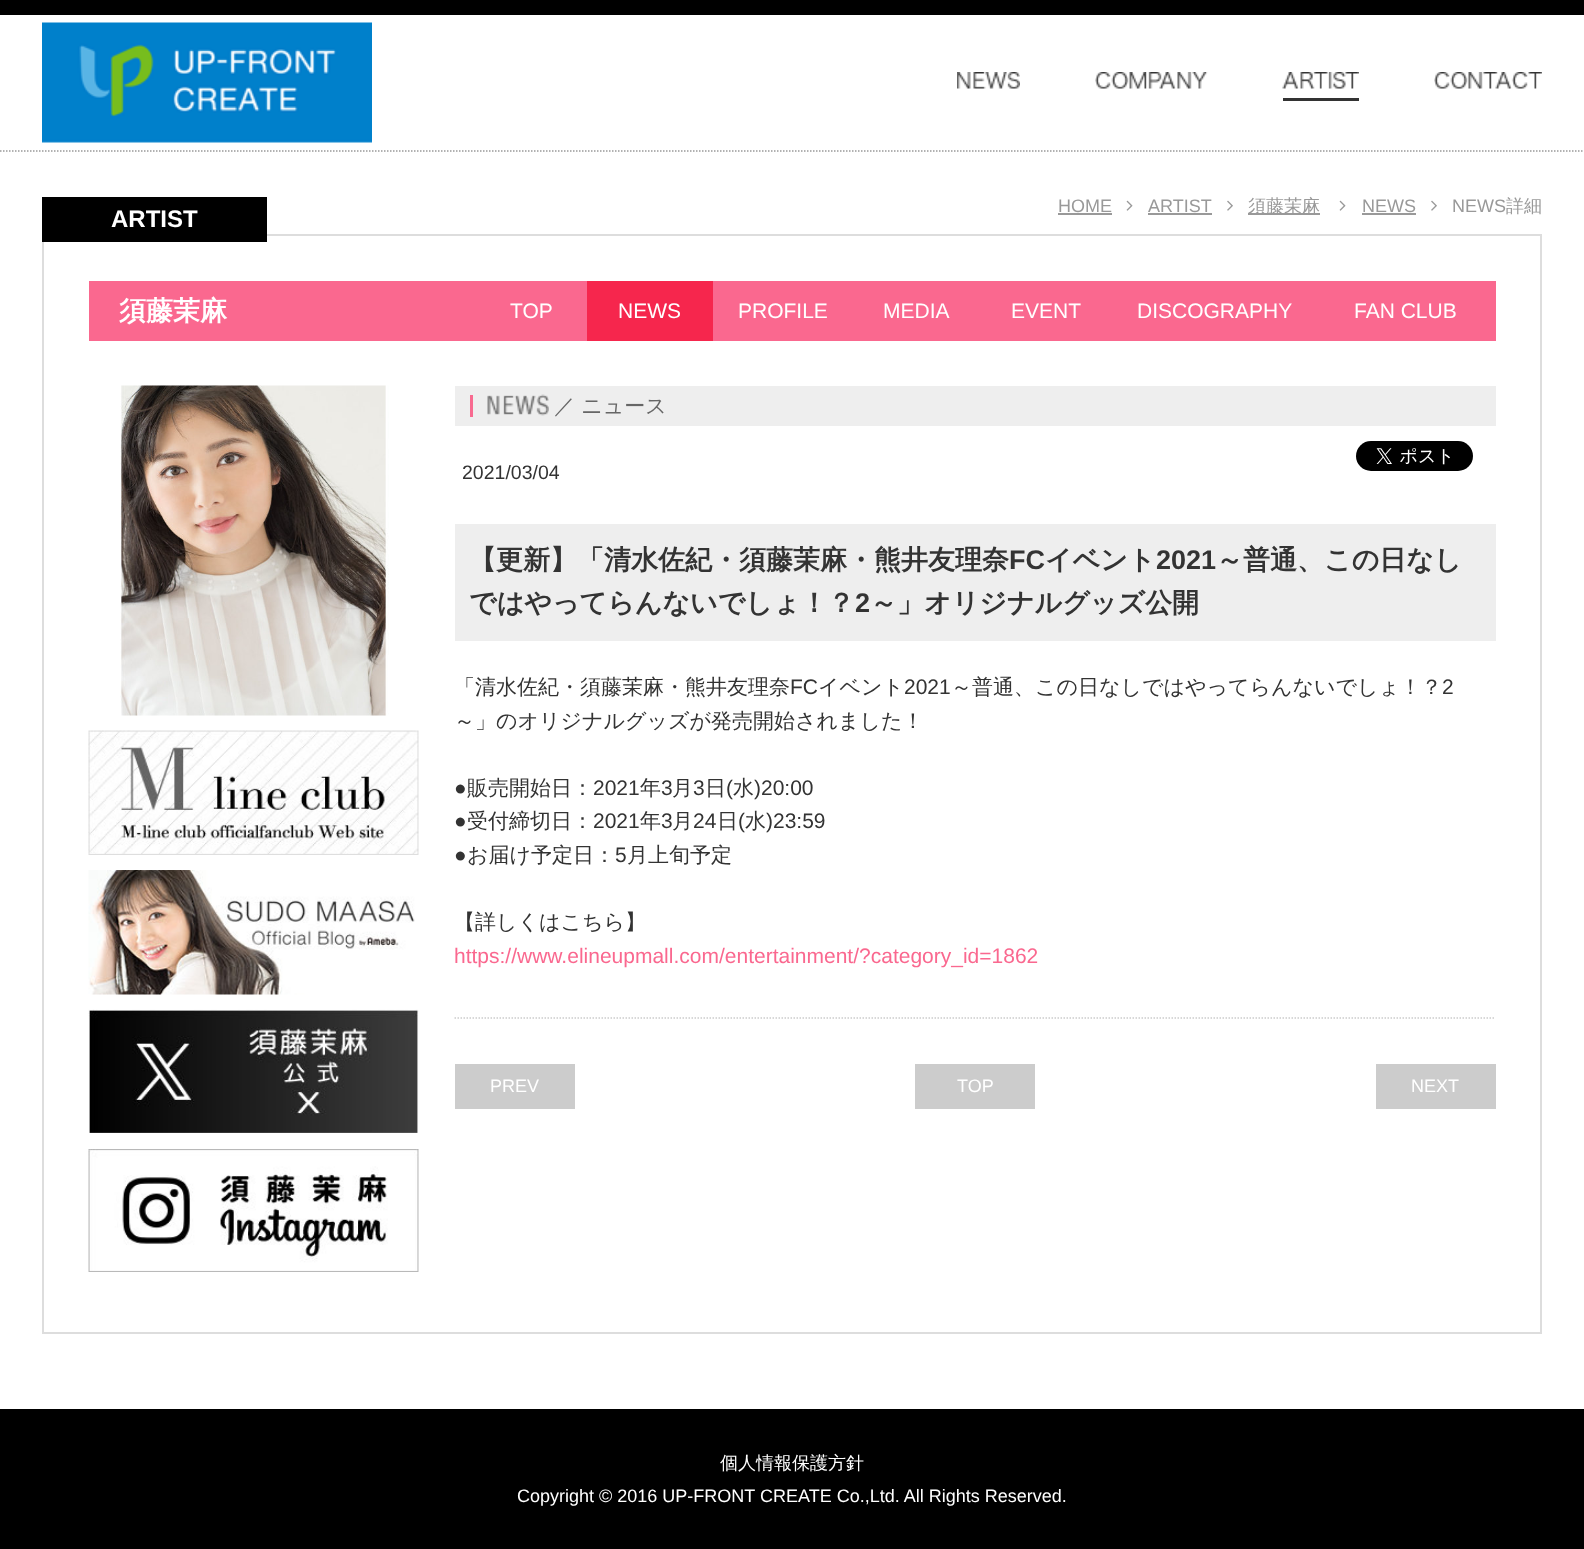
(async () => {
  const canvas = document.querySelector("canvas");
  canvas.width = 1584;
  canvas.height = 1549;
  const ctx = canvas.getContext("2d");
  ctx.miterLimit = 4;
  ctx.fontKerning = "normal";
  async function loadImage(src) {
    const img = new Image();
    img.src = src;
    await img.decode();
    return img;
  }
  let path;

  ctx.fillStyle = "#ffffff";
  ctx.fillRect(0, 0, 1584, 1549);
  ctx.fillStyle = "#000000";
  ctx.fillRect(0, 0, 1584, 15);
  ctx.drawImage(await loadImage("img/1.png"), 42, 22, 330, 121);
  ctx.drawImage(await loadImage("img/2.png"), 957, 72, 63, 17);
  ctx.drawImage(await loadImage("img/3.png"), 1095, 72, 113, 17);
  ctx.fillStyle = "#333333";
  ctx.fillRect(1283, 98, 76, 3);
  ctx.drawImage(await loadImage("img/4.png"), 1282, 72, 77, 17);
  ctx.drawImage(await loadImage("img/5.png"), 1434, 72, 108, 17);
  path = new Path2D("M0 151H1584");
  ctx.strokeStyle = "#999999";
  ctx.lineWidth = 1.5;
  ctx.setLineDash([1.5, 1.5]);
  ctx.stroke(path);
  ctx.fillStyle = "#999999";
  ctx.fillRect(1058, 213, 54, 2);
  ctx.drawImage(await loadImage("img/6.png"), 1126, 200, 7, 11);
  ctx.fillRect(1148, 213, 64, 2);
  ctx.drawImage(await loadImage("img/7.png"), 1227, 200, 6, 11);
  ctx.fillRect(1248, 213, 72, 2);
  ctx.drawImage(await loadImage("img/6.png"), 1339, 200, 7, 11);
  ctx.fillRect(1362, 213, 54, 2);
  ctx.drawImage(await loadImage("img/7.png"), 1431, 200, 6, 11);
  ctx.strokeStyle = "#dddddd";
  ctx.lineWidth = 2;
  ctx.setLineDash([]);
  ctx.strokeRect(43, 235, 1498, 1098);
  for (const [x, y, w, h, color] of [
    [42, 197, 225, 45, "#000000"],
    [89, 281, 1407, 60, "#fa688f"],
    [587, 281, 126, 60, "#f6264d"],
  ]) {
    ctx.fillStyle = color;
    ctx.fillRect(x, y, w, h);
  }
  ctx.drawImage(await loadImage("img/8.png"), 120, 385, 269, 331);
  ctx.drawImage(await loadImage("img/9.png"), 88, 730, 331, 125);
  ctx.drawImage(await loadImage("img/10.png"), 88, 870, 327, 125);
  ctx.drawImage(await loadImage("img/11.png"), 88, 1009, 331, 124);
  ctx.drawImage(await loadImage("img/12.png"), 88, 1149, 331, 123);
  ctx.fillStyle = "#eeeeee";
  ctx.fillRect(455, 386, 1041, 40);
  ctx.fillStyle = "#f86a90";
  ctx.fillRect(470, 395, 3, 22);
  ctx.drawImage(await loadImage("img/13.png"), 487, 394, 62, 22);
  ctx.drawImage(await loadImage("img/14.png"), 1356, 441, 117, 30);
  path = new Path2D("M454.5 1018H1495.5");
  ctx.strokeStyle = "#cccccc";
  ctx.lineWidth = 1.5;
  ctx.setLineDash([1.5, 1.5]);
  ctx.stroke(path);
  for (const [x, y, w, h, color] of [
    [455, 524, 1041, 117, "#eeeeee"],
    [455, 1064, 120, 45, "#cccccc"],
    [915, 1064, 120, 45, "#cccccc"],
    [1376, 1064, 120, 45, "#cccccc"],
    [0, 1409, 1584, 140, "#000000"],
  ]) {
    ctx.fillStyle = color;
    ctx.fillRect(x, y, w, h);
  }
  ctx.font = "18px Liberation Sans";
  ctx.fillStyle = "#999999";
  ctx.fillText("HOME", 1058, 212);
  ctx.fillText("ARTIST", 1148, 212);
  ctx.font = "500 18px WenQuanYi Zen Hei";
  ctx.fillText("須藤茉麻", 1248, 212);
  ctx.font = "18px Liberation Sans";
  ctx.fillText("NEWS", 1362, 212);
  ctx.fillText("NEWS", 1452, 212);
  ctx.font = "500 18px WenQuanYi Zen Hei";
  ctx.fillText("詳細", 1506, 212);
  ctx.font = "bold 24px Liberation Sans";
  ctx.fillStyle = "#ffffff";
  ctx.fillText("ARTIST", 111, 227);
  ctx.font = "bold 27px WenQuanYi Zen Hei";
  ctx.fillText("須藤茉麻", 119, 320);
  ctx.font = "21px Liberation Sans";
  for (const [text, x, y] of [
    ["TOP", 510, 318],
    ["NEWS", 618, 318],
    ["PROFILE", 738, 318],
    ["MEDIA", 883, 318],
    ["EVENT", 1011, 318],
    ["DISCOGRAPHY", 1137, 318],
    ["FAN CLUB", 1354, 318],
  ]) {
    ctx.fillText(text, x, y);
  }
  ctx.font = "500 21px WenQuanYi Zen Hei";
  ctx.fillStyle = "#666666";
  ctx.fillText("／ ニュース", 554, 413);
  ctx.font = "19.5px Liberation Sans";
  ctx.fillStyle = "#333333";
  ctx.fillText("2021/03/04", 462, 479);
  ctx.font = "bold 27px WenQuanYi Zen Hei";
  ctx.fillText("【更新】「清水佐紀・須藤茉麻・熊井友理奈", 469, 569);
  ctx.font = "bold 27px Liberation Sans";
  ctx.fillText("FC", 1009, 569);
  ctx.font = "bold 27px WenQuanYi Zen Hei";
  ctx.fillText("イベント", 1045, 569);
  ctx.font = "bold 27px Liberation Sans";
  ctx.fillText("2021", 1156, 569);
  ctx.font = "bold 27px WenQuanYi Zen Hei";
  ctx.fillText("～普通、この日なし", 1216, 569);
  ctx.fillText("ではやってらんないでしょ！？", 469, 612);
  ctx.font = "bold 27px Liberation Sans";
  ctx.fillText("2", 855, 612);
  ctx.font = "bold 27px WenQuanYi Zen Hei";
  ctx.fillText("～」オリジナルグッズ公開", 870, 612);
  ctx.font = "500 21px WenQuanYi Zen Hei";
  ctx.fillText("「清水佐紀・須藤茉麻・熊井友理奈", 454, 694);
  ctx.font = "21px Liberation Sans";
  ctx.fillText("FC", 790, 694);
  ctx.font = "500 21px WenQuanYi Zen Hei";
  ctx.fillText("イベント", 818, 694);
  ctx.font = "21px Liberation Sans";
  ctx.fillText("2021", 904, 694);
  ctx.font = "500 21px WenQuanYi Zen Hei";
  ctx.fillText("～普通、この日なしではやってらんないでしょ！？", 951, 694);
  ctx.font = "21px Liberation Sans";
  ctx.fillText("2", 1442, 694);
  ctx.font = "500 21px WenQuanYi Zen Hei";
  ctx.fillText("～」のオリジナルグッズが発売開始されました！", 454, 728);
  ctx.font = "21px Liberation Sans";
  ctx.fillText("●", 454, 795);
  ctx.font = "500 21px WenQuanYi Zen Hei";
  ctx.fillText("販売開始日：", 467, 795);
  ctx.font = "21px Liberation Sans";
  ctx.fillText("2021", 593, 795);
  ctx.font = "500 21px WenQuanYi Zen Hei";
  ctx.fillText("年", 640, 795);
  ctx.font = "21px Liberation Sans";
  ctx.fillText("3", 661, 795);
  ctx.font = "500 21px WenQuanYi Zen Hei";
  ctx.fillText("月", 672, 795);
  ctx.font = "21px Liberation Sans";
  ctx.fillText("3", 693, 795);
  ctx.font = "500 21px WenQuanYi Zen Hei";
  ctx.fillText("日", 705, 795);
  ctx.font = "21px Liberation Sans";
  ctx.fillText("(", 726, 795);
  ctx.font = "500 21px WenQuanYi Zen Hei";
  ctx.fillText("水", 733, 795);
  ctx.font = "21px Liberation Sans";
  ctx.fillText(")20:00", 754, 795);
  ctx.fillText("●", 454, 828);
  ctx.font = "500 21px WenQuanYi Zen Hei";
  ctx.fillText("受付締切日：", 467, 828);
  ctx.font = "21px Liberation Sans";
  ctx.fillText("2021", 593, 828);
  ctx.font = "500 21px WenQuanYi Zen Hei";
  ctx.fillText("年", 640, 828);
  ctx.font = "21px Liberation Sans";
  ctx.fillText("3", 661, 828);
  ctx.font = "500 21px WenQuanYi Zen Hei";
  ctx.fillText("月", 672, 828);
  ctx.font = "21px Liberation Sans";
  ctx.fillText("24", 693, 828);
  ctx.font = "500 21px WenQuanYi Zen Hei";
  ctx.fillText("日", 717, 828);
  ctx.font = "21px Liberation Sans";
  ctx.fillText("(", 738, 828);
  ctx.font = "500 21px WenQuanYi Zen Hei";
  ctx.fillText("水", 745, 828);
  ctx.font = "21px Liberation Sans";
  ctx.fillText(")23:59", 766, 828);
  ctx.fillText("●", 454, 862);
  ctx.font = "500 21px WenQuanYi Zen Hei";
  ctx.fillText("お届け予定日：", 467, 862);
  ctx.font = "21px Liberation Sans";
  ctx.fillText("5", 615, 862);
  ctx.font = "500 21px WenQuanYi Zen Hei";
  ctx.fillText("月上旬予定", 627, 862);
  ctx.fillText("【詳しくはこちら】", 454, 929);
  ctx.font = "21px Liberation Sans";
  ctx.fillStyle = "#fa688f";
  ctx.fillText("https://www.elineupmall.com/entertainment/?category_id=1862", 454, 963);
  ctx.font = "18px Liberation Sans";
  ctx.fillStyle = "#ffffff";
  for (const [text, x, y] of [
    ["PREV", 490, 1092],
    ["TOP", 957, 1092],
    ["NEXT", 1411, 1092],
  ]) {
    ctx.fillText(text, x, y);
  }
  ctx.font = "500 18px WenQuanYi Zen Hei";
  ctx.fillText("個人情報保護方針", 720, 1469);
  ctx.font = "18px Liberation Sans";
  ctx.fillText("Copyright © 2016 UP-FRONT CREATE Co.,Ltd. All Rights Reserved.", 517, 1502);
})();
